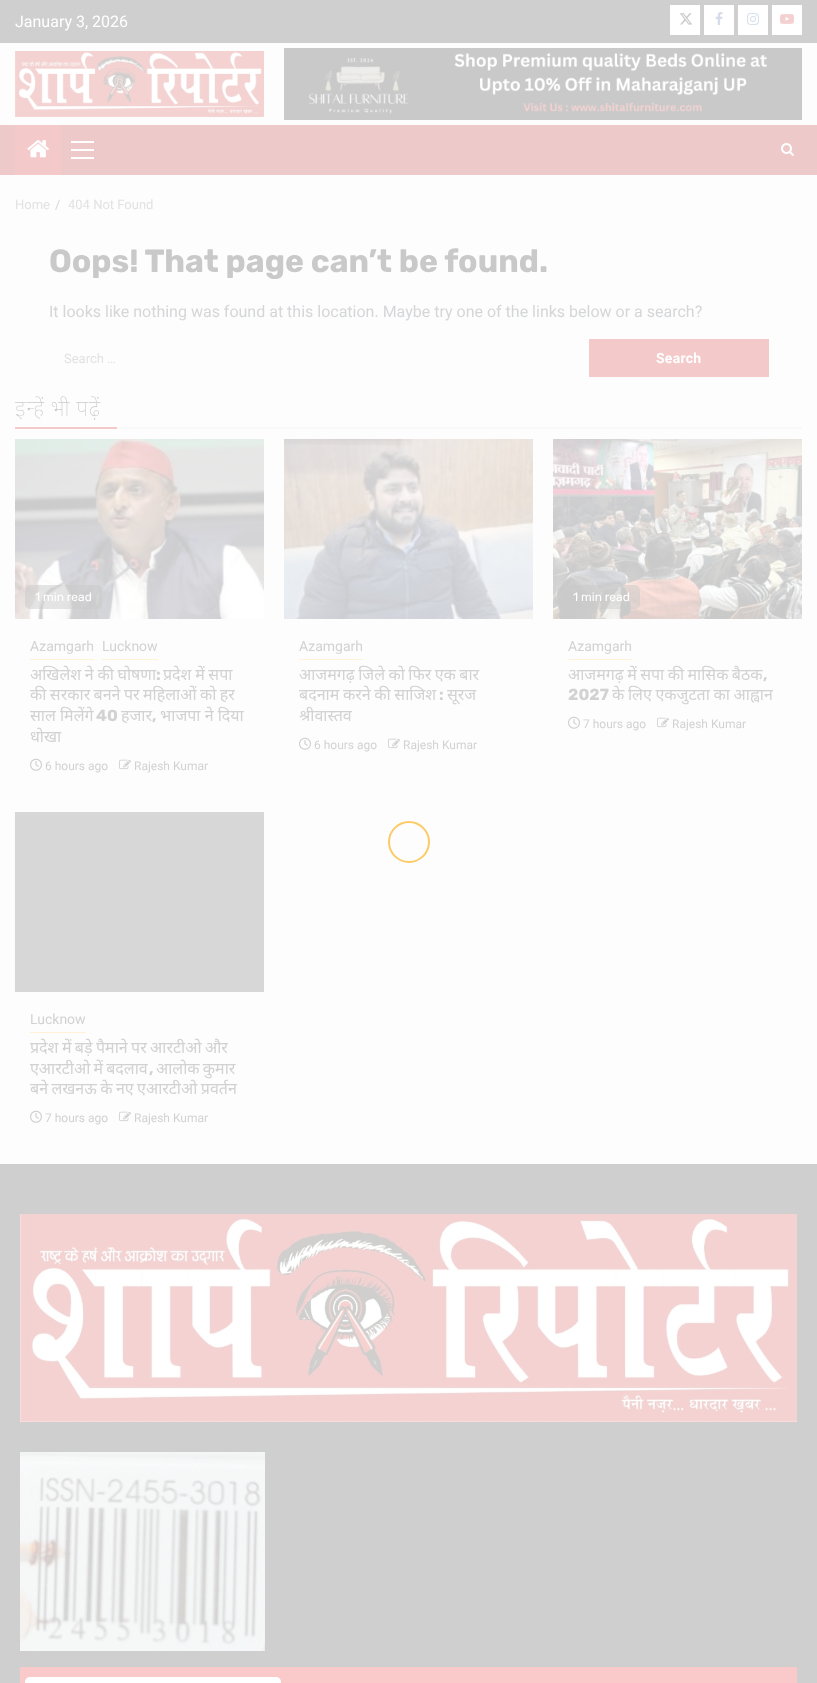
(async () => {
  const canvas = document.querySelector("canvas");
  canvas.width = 817;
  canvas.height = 1683;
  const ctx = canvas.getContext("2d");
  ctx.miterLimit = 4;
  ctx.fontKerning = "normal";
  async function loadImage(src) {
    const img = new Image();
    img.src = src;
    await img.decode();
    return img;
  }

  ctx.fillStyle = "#fdfdfd";
  ctx.fillRect(0, 0, 817, 1683);
  ctx.fillStyle = "#cfcfcf";
  ctx.fillRect(0, 0, 817, 43);
  ctx.fillStyle = "#ffffff";
  ctx.fillRect(670, 5, 30, 30);
  ctx.drawImage(await loadImage("img/1.png"), 679, 13, 14, 12);
  ctx.fillRect(704, 5, 30, 30);
  ctx.drawImage(await loadImage("img/2.png"), 715, 12, 8, 13);
  ctx.fillRect(738, 5, 30, 30);
  ctx.drawImage(await loadImage("img/3.png"), 747, 13, 12, 12);
  ctx.fillRect(772, 5, 30, 30);
  ctx.drawImage(await loadImage("img/4.png"), 780, 14, 14, 10);
  ctx.drawImage(await loadImage("img/5.png"), 15, 51, 249, 66);
  ctx.drawImage(await loadImage("img/6.png"), 284, 48, 518, 72);
  ctx.fillStyle = "#eec9c9";
  ctx.fillRect(0, 125, 817, 50);
  ctx.fillStyle = "#f4c9c9";
  ctx.fillRect(15, 125, 46, 50);
  ctx.drawImage(await loadImage("img/7.png"), 27, 140, 22, 18);
  for (const [x, y, w, h, color] of [
    [71, 149, 23, 2, "#ffffff"],
    [71, 141, 23, 2, "#ffffff"],
    [71, 157, 23, 2, "#ffffff"],
  ]) {
    ctx.fillStyle = color;
    ctx.fillRect(x, y, w, h);
  }
  ctx.drawImage(await loadImage("img/8.png"), 781, 143, 13, 13);
  for (const [x, y, w, h, color] of [
    [589, 339, 180, 38, "#f4c9c9"],
    [15, 427, 102, 2, "#f4c9c9"],
    [117, 427, 685, 2, "#f9f9f9"],
  ]) {
    ctx.fillStyle = color;
    ctx.fillRect(x, y, w, h);
  }
  ctx.drawImage(await loadImage("img/9.png"), 15, 439, 249, 180);
  ctx.fillStyle = "rgba(201, 201, 201, 0.5)";
  ctx.beginPath();
  ctx.roundRect(25, 585, 77, 24, 5);
  ctx.fill();
  ctx.fillStyle = "#fff2d7";
  ctx.fillRect(30, 659, 64, 1);
  ctx.fillRect(102, 659, 56, 1);
  ctx.drawImage(await loadImage("img/10.png"), 30, 758, 12, 13);
  ctx.drawImage(await loadImage("img/11.png"), 119, 759, 12, 11);
  ctx.drawImage(await loadImage("img/12.png"), 284, 439, 249, 180);
  ctx.fillRect(299, 659, 64, 1);
  ctx.drawImage(await loadImage("img/10.png"), 299, 737, 12, 13);
  ctx.drawImage(await loadImage("img/11.png"), 388, 738, 12, 11);
  ctx.drawImage(await loadImage("img/13.png"), 553, 439, 249, 180);
  ctx.fillStyle = "rgba(201, 201, 201, 0.5)";
  ctx.beginPath();
  ctx.roundRect(563, 585, 77, 24, 5);
  ctx.fill();
  ctx.fillStyle = "#fff2d7";
  ctx.fillRect(568, 659, 64, 1);
  ctx.drawImage(await loadImage("img/10.png"), 568, 716, 12, 13);
  ctx.drawImage(await loadImage("img/11.png"), 657, 717, 12, 11);
  ctx.fillStyle = "#d7d7d7";
  ctx.fillRect(15, 812, 249, 180);
  ctx.fillStyle = "#fff2d7";
  ctx.fillRect(30, 1032, 56, 1);
  ctx.drawImage(await loadImage("img/10.png"), 30, 1110, 12, 13);
  ctx.drawImage(await loadImage("img/11.png"), 119, 1111, 12, 11);
  ctx.fillStyle = "#cfcfcf";
  ctx.fillRect(0, 1164, 817, 519);
  ctx.drawImage(await loadImage("img/14.png"), 20, 1214, 777, 208);
  ctx.drawImage(await loadImage("img/15.png"), 20, 1452, 245, 199);
  ctx.drawImage(await loadImage("img/16.png"), 20, 1667, 777, 16);
  ctx.beginPath();
  ctx.arc(409, 842, 20, 0, Math.PI * 2);
  ctx.strokeStyle = "#fdcb66";
  ctx.lineWidth = 2;
  ctx.stroke();
  ctx.font = "16px Roboto";
  ctx.fillStyle = "#ffffff";
  ctx.fillText("January 3, 2026", 15, 27);
  ctx.font = "13px Roboto";
  ctx.fillStyle = "#e2e2e2";
  ctx.fillText("Home", 15, 209);
  ctx.fillStyle = "#d5d6d8";
  ctx.fillText("/", 55, 209);
  ctx.fillStyle = "#e2e2e2";
  ctx.fillText("404 Not Found", 68, 209);
  ctx.font = "bold 32px Rubik";
  ctx.fillStyle = "#c9c9c9";
  ctx.fillText("Oops! That page can’t be found.", 49, 272);
  ctx.font = "16px Roboto";
  ctx.fillStyle = "#d5d6d8";
  ctx.fillText("It looks like nothing was found at this location. Maybe try one of the links below or a search?", 49, 317);
  ctx.font = "13px Roboto";
  ctx.fillStyle = "#e2e2e2";
  ctx.fillText("Search …", 64, 363);
  ctx.letterSpacing = "0.25px";
  ctx.font = "bold 14px Roboto";
  ctx.fillStyle = "#ffffff";
  ctx.fillText("Search", 656, 363);
  ctx.letterSpacing = "1px";
  ctx.wordSpacing = "-1px";
  ctx.font = "100 22px Noto Sans";
  ctx.fillStyle = "#c9c9c9";
  ctx.fillText("इन्हें भी पढ़ें", 15, 416);
  ctx.letterSpacing = "0px";
  ctx.wordSpacing = "0px";
  ctx.font = "12px Rubik";
  ctx.fillStyle = "#ffffff";
  ctx.fillText("1 min read", 35, 601);
  ctx.font = "14px Roboto";
  ctx.fillStyle = "#d2d2d2";
  ctx.fillText("Azamgarh", 30, 651);
  ctx.fillText("Lucknow", 102, 651);
  ctx.wordSpacing = "-0.5px";
  ctx.font = "16px Noto Sans";
  ctx.fillText("अखिलेश ने की घोषणा", 30, 680);
  ctx.wordSpacing = "0px";
  ctx.font = "bold 16px Rubik";
  ctx.fillText(":", 156, 680);
  ctx.wordSpacing = "-0.5px";
  ctx.font = "16px Noto Sans";
  ctx.fillText("प्रदेश में सपा", 163, 680);
  ctx.wordSpacing = "-0.75px";
  ctx.fillText("की सरकार बनने पर महिलाओं को हर", 30, 700);
  ctx.wordSpacing = "0px";
  ctx.fillText("साल मिलेंगे", 30, 721);
  ctx.font = "bold 16px Rubik";
  ctx.fillText("40", 96, 721);
  ctx.font = "16px Noto Sans";
  ctx.fillText("हजार", 121, 721);
  ctx.font = "bold 16px Rubik";
  ctx.fillText(",", 152, 721);
  ctx.font = "16px Noto Sans";
  ctx.fillText("भाजपा ने दिया", 160, 721);
  ctx.fillText("धोखा", 30, 742);
  ctx.font = "12px Roboto";
  ctx.fillText("6 hours ago", 45, 770);
  ctx.fillText("Rajesh Kumar", 134, 770);
  ctx.font = "14px Roboto";
  ctx.fillText("Azamgarh", 299, 651);
  ctx.wordSpacing = "-0.75px";
  ctx.font = "16px Noto Sans";
  ctx.fillText("आजमगढ़ जिले को फिर एक बार", 299, 680);
  ctx.wordSpacing = "-0.5px";
  ctx.fillText("बदनाम करने की साजिश", 299, 700);
  ctx.wordSpacing = "0px";
  ctx.font = "bold 16px Rubik";
  ctx.fillText(":", 439, 700);
  ctx.font = "16px Noto Sans";
  ctx.fillText("सूरज", 447, 700);
  ctx.fillText("श्रीवास्तव", 299, 721);
  ctx.font = "12px Roboto";
  ctx.fillText("6 hours ago", 314, 749);
  ctx.fillText("Rajesh Kumar", 403, 749);
  ctx.font = "12px Rubik";
  ctx.fillStyle = "#ffffff";
  ctx.fillText("1 min read", 573, 601);
  ctx.font = "14px Roboto";
  ctx.fillStyle = "#d2d2d2";
  ctx.fillText("Azamgarh", 568, 651);
  ctx.wordSpacing = "-0.75px";
  ctx.font = "16px Noto Sans";
  ctx.fillText("आजमगढ़ में सपा की मासिक बैठक", 568, 680);
  ctx.wordSpacing = "0px";
  ctx.font = "bold 16px Rubik";
  ctx.fillText(",", 763, 680);
  ctx.fillText("2027", 568, 700);
  ctx.wordSpacing = "-0.5px";
  ctx.font = "16px Noto Sans";
  ctx.fillText("के लिए एकजुटता का आह्वान", 612, 700);
  ctx.wordSpacing = "0px";
  ctx.font = "12px Roboto";
  ctx.fillText("7 hours ago", 583, 728);
  ctx.fillText("Rajesh Kumar", 672, 728);
  ctx.font = "14px Roboto";
  ctx.fillText("Lucknow", 30, 1024);
  ctx.wordSpacing = "-0.75px";
  ctx.font = "16px Noto Sans";
  ctx.fillText("प्रदेश में बड़े पैमाने पर आरटीओ और", 30, 1053);
  ctx.wordSpacing = "-1px";
  ctx.fillText("एआरटीओ में बदलाव", 30, 1074);
  ctx.wordSpacing = "0px";
  ctx.font = "bold 16px Rubik";
  ctx.fillText(",", 149, 1074);
  ctx.wordSpacing = "-1px";
  ctx.font = "16px Noto Sans";
  ctx.fillText("आलोक कुमार", 156, 1074);
  ctx.wordSpacing = "-0.75px";
  ctx.fillText("बने लखनऊ के नए एआरटीओ प्रवर्तन", 30, 1094);
  ctx.wordSpacing = "0px";
  ctx.font = "12px Roboto";
  ctx.fillText("7 hours ago", 45, 1122);
  ctx.fillText("Rajesh Kumar", 134, 1122);
})();
